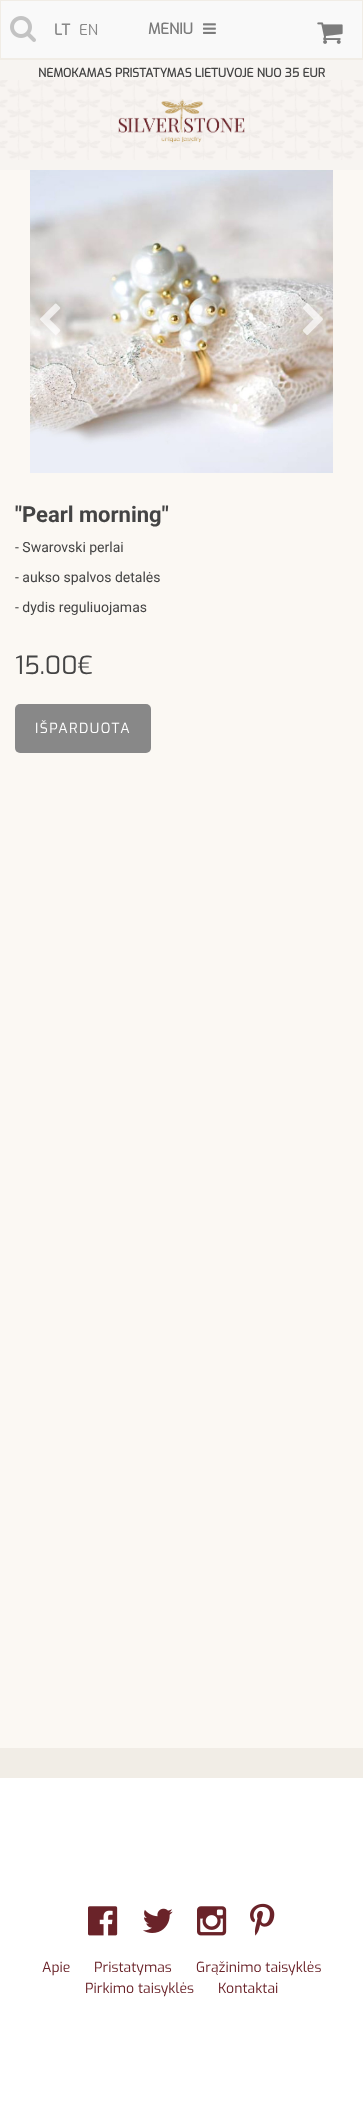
(async () => {
  const canvas = document.querySelector("canvas");
  canvas.width = 363;
  canvas.height = 2104;
  const ctx = canvas.getContext("2d");
  ctx.miterLimit = 4;
  ctx.fontKerning = "normal";
  async function loadImage(src) {
    const img = new Image();
    img.src = src;
    await img.decode();
    return img;
  }

  ctx.fillStyle = "#f1ede6";
  ctx.fillRect(0, 0, 363, 2104);
  ctx.fillStyle = "#f9f9f9";
  ctx.fillRect(1, 1, 361, 57);
  ctx.drawImage(await loadImage("img/1.png"), 203, 23, 13, 11);
  ctx.fillStyle = "#f7f4f1";
  ctx.fillRect(0, 60, 363, 110);
  ctx.drawImage(await loadImage("img/2.png"), 10, 16, 26, 26);
  ctx.drawImage(await loadImage("img/3.png"), 317, 22, 26, 22);
  ctx.drawImage(await loadImage("img/4.png"), 0, 80, 363, 80);
  ctx.fillStyle = "#fbf8f3";
  ctx.fillRect(0, 170, 363, 1578);
  ctx.drawImage(await loadImage("img/5.png"), 30, 170, 303, 303);
  ctx.drawImage(await loadImage("img/6.png"), 40, 303, 21, 32);
  ctx.drawImage(await loadImage("img/7.png"), 302, 303, 21, 32);
  ctx.fillStyle = "#888888";
  ctx.beginPath();
  ctx.roundRect(15, 704, 136, 49, 5);
  ctx.fill();
  ctx.fillStyle = "#ffffff";
  ctx.fillRect(0, 1778, 363, 326);
  ctx.drawImage(await loadImage("img/8.png"), 88, 1906, 30, 30);
  ctx.drawImage(await loadImage("img/9.png"), 143, 1908, 30, 25);
  ctx.drawImage(await loadImage("img/10.png"), 197, 1906, 30, 30);
  ctx.drawImage(await loadImage("img/11.png"), 250, 1903, 25, 33);
  ctx.font = "bold 15px Exo";
  ctx.fillStyle = "#7c7c7c";
  ctx.fillText("MENIU", 148, 34);
  ctx.font = "bold 12px Exo";
  ctx.fillStyle = "#444444";
  ctx.fillText("NEMOKAMAS PRISTATYMAS LIETUVOJE NUO 35 EUR", 38, 77);
  ctx.font = "bold 15px Exo";
  ctx.fillStyle = "#888888";
  ctx.fillText("LT", 54, 35);
  ctx.font = "15px Exo";
  ctx.fillText("EN", 79, 35);
  ctx.font = "bold 22px Roboto";
  ctx.fillStyle = "#444444";
  ctx.fillText("\"Pearl morning\"", 15, 522);
  ctx.font = "14px Roboto";
  for (const [text, x, y] of [
    ["- Swarovski perlai", 15, 552],
    ["- aukso spalvos detalės", 15, 582],
    ["- dydis reguliuojamas", 15, 612],
  ]) {
    ctx.fillText(text, x, y);
  }
  ctx.font = "25px Exo";
  ctx.fillText("15.00€", 15, 674);
  ctx.letterSpacing = "1.4px";
  ctx.font = "14px Exo";
  ctx.fillStyle = "#ffffff";
  ctx.fillText("IŠPARDUOTA", 35, 733);
  ctx.letterSpacing = "0px";
  ctx.fillStyle = "#6a2329";
  for (const [text, x, y] of [
    ["Apie", 42, 1972],
    ["Pristatymas", 94, 1972],
    ["Grąžinimo taisyklės", 196, 1972],
    ["Pirkimo taisyklės", 85, 1993],
    ["Kontaktai", 218, 1993],
  ]) {
    ctx.fillText(text, x, y);
  }
})();
